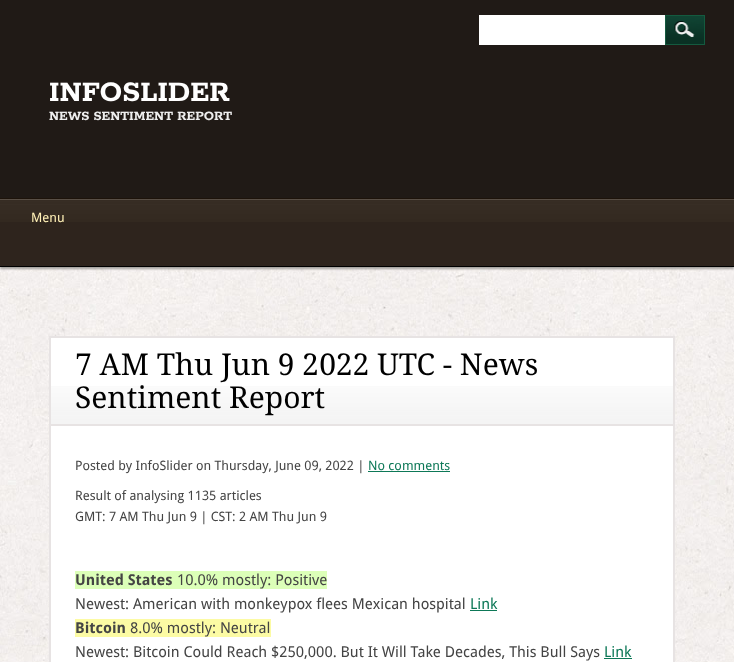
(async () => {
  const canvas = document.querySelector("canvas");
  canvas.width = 734;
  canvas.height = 662;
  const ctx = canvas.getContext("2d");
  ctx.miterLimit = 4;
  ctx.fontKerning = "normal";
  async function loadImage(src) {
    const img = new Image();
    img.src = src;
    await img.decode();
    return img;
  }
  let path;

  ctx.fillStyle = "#ffffff";
  ctx.fillRect(0, 0, 734, 662);
  ctx.drawImage(await loadImage("img/1.png"), 0, 267, 734, 395);
  ctx.fillStyle = "#201a16";
  ctx.fillRect(0, 0, 734, 198);
  ctx.fillStyle = "#ffffff";
  ctx.fillRect(479, 15, 186, 30);
  ctx.drawImage(await loadImage("img/2.png"), 666, 16, 38, 28);
  ctx.save();
  ctx.beginPath();
  ctx.rect(665, 15, 40, 30);
  ctx.clip();
  ctx.fillStyle = "#145a3f";
  path = new Path2D("M566-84H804V144H566ZM664 14H704V44H664Z");
  ctx.fill(path, "evenodd");
  path = new Path2D("M566-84H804V144H566ZM666 16H706V46H666Z");
  ctx.fill(path, "evenodd");
  ctx.restore();
  ctx.fillStyle = "#a3a09d";
  ctx.filter = "blur(1px)";
  ctx.beginPath();
  ctx.rect(0, 200, 734, 69);
  ctx.fill();
  ctx.filter = "none";
  ctx.fillStyle = "#2e241d";
  ctx.fillRect(0, 222, 734, 44);
  ctx.drawImage(await loadImage("img/3.png"), 0, 198, 734, 24);
  ctx.fillStyle = "#000000";
  ctx.fillRect(0, 266, 734, 1);
  ctx.fillStyle = "#ffffff";
  ctx.beginPath();
  ctx.rect(50, 337, 624, 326);
  ctx.fill();
  ctx.strokeStyle = "#e7e3e3";
  ctx.lineWidth = 2;
  ctx.stroke();
  ctx.drawImage(await loadImage("img/4.png"), 51, 386, 622, 38);
  for (const [x, y, w, h, color] of [
    [51, 424, 622, 2, "#e7e3e3"],
    [368, 471, 82, 1, "#0d7857"],
    [75, 571, 252, 18, "#dcffb8"],
    [470, 610, 27, 1, "#0d7857"],
    [75, 619, 196, 18, "#fcfba4"],
    [604, 658, 28, 1, "#0d7857"],
  ]) {
    ctx.fillStyle = color;
    ctx.fillRect(x, y, w, h);
  }
  ctx.font = "bold 31.5px Rokkitt";
  ctx.fillStyle = "#ffffff";
  ctx.fillText("INFOSLIDER", 49, 101);
  ctx.font = "bold 14.25px Rokkitt";
  ctx.fillStyle = "#eeeeee";
  ctx.fillText("NEWS SENTIMENT REPORT", 49, 120);
  ctx.font = "13px Droid Sans";
  ctx.fillStyle = "#fff0b6";
  ctx.fillText("Menu", 31, 222);
  ctx.font = "30px Droid Serif";
  ctx.fillStyle = "#000000";
  ctx.fillText("7 AM Thu Jun 9 2022 UTC - News", 75, 375);
  ctx.fillText("Sentiment Report", 75, 408);
  ctx.font = "13px Droid Sans";
  ctx.fillStyle = "#444444";
  ctx.fillText("Posted by InfoSlider on Thursday, June 09, 2022 |", 75, 470);
  ctx.fillStyle = "#0d7857";
  ctx.fillText("No comments", 368, 470);
  ctx.fillStyle = "#444444";
  ctx.fillText("Result of analysing 1135 articles", 75, 500);
  ctx.fillText("GMT: 7 AM Thu Jun 9 | CST: 2 AM Thu Jun 9", 75, 521);
  ctx.font = "bold 15px Droid Sans";
  ctx.fillText("United States", 75, 585);
  ctx.font = "15px Droid Sans";
  ctx.fillText("10.0% mostly: Positive", 177, 585);
  ctx.fillText("Newest: American with monkeypox flees Mexican hospital", 75, 609);
  ctx.fillStyle = "#0d7857";
  ctx.fillText("Link", 470, 609);
  ctx.font = "bold 15px Droid Sans";
  ctx.fillStyle = "#444444";
  ctx.fillText("Bitcoin", 75, 633);
  ctx.font = "15px Droid Sans";
  ctx.fillText("8.0% mostly: Neutral", 130, 633);
  ctx.fillText("Newest: Bitcoin Could Reach $250,000. But It Will Take Decades, This Bull Says", 75, 657);
  ctx.fillStyle = "#0d7857";
  ctx.fillText("Link", 604, 657);
})();
